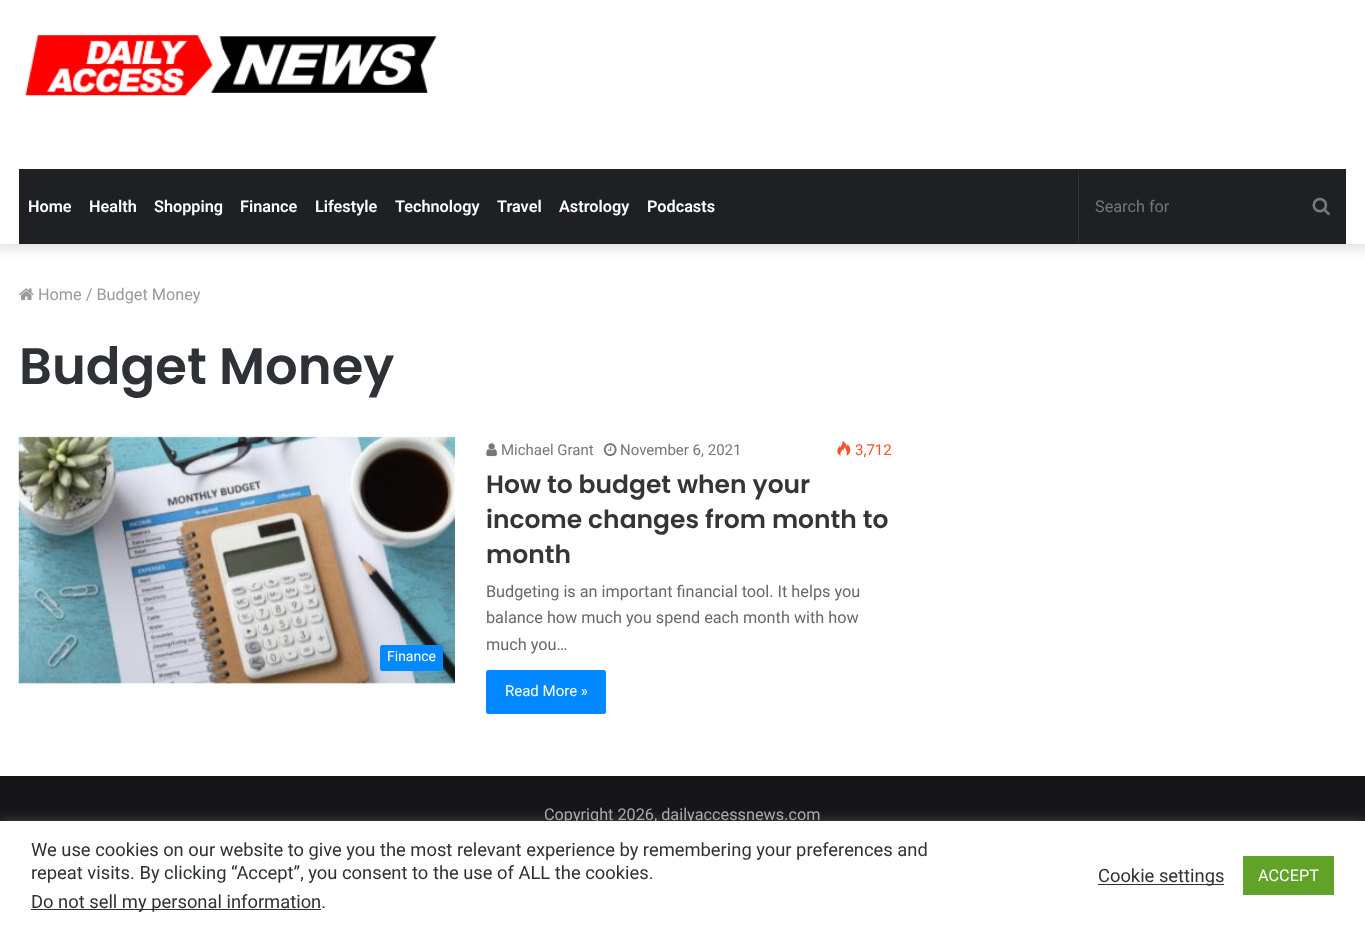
(async () => {
  const canvas = document.querySelector("canvas");
  canvas.width = 1365;
  canvas.height = 930;
  const ctx = canvas.getContext("2d");
  ctx.miterLimit = 4;
  ctx.fontKerning = "normal";
  async function loadImage(src) {
    const img = new Image();
    img.src = src;
    await img.decode();
    return img;
  }

  ctx.fillStyle = "#ffffff";
  ctx.fillRect(0, 0, 1365, 930);
  ctx.fillStyle = "rgba(0, 0, 0, 0.1)";
  ctx.filter = "blur(6px)";
  ctx.beginPath();
  ctx.rect(-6, -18, 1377, 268);
  ctx.fill();
  ctx.filter = "none";
  ctx.fillStyle = "#ffffff";
  ctx.fillRect(0, 0, 1365, 244);
  ctx.drawImage(await loadImage("img/1.png"), 25, 35, 412, 61);
  ctx.fillStyle = "#1f2024";
  ctx.fillRect(19, 169, 1327, 75);
  ctx.fillStyle = "#2f3033";
  ctx.fillRect(1078, 169, 1, 75);
  ctx.drawImage(await loadImage("img/2.png"), 1312, 197, 18, 19);
  ctx.drawImage(await loadImage("img/3.png"), 19, 288, 15, 12);
  ctx.drawImage(await loadImage("img/4.png"), 18, 436, 437, 248);
  ctx.fillStyle = "#0389ff";
  ctx.beginPath();
  ctx.roundRect(380, 645, 63, 26, 2.5);
  ctx.fill();
  ctx.drawImage(await loadImage("img/5.png"), 486, 443, 11, 14);
  ctx.drawImage(await loadImage("img/6.png"), 603, 443, 14, 14);
  ctx.drawImage(await loadImage("img/7.png"), 837, 441, 14, 15);
  ctx.beginPath();
  ctx.roundRect(486, 670, 120, 44, 2.5);
  ctx.fill();
  ctx.fillStyle = "#161619";
  ctx.fillRect(0, 776, 1365, 45);
  ctx.fillStyle = "rgba(172, 171, 171, 0.3)";
  ctx.filter = "blur(6px)";
  ctx.beginPath();
  ctx.rect(0, 820, 1365, 109);
  ctx.fill();
  ctx.filter = "none";
  ctx.font = "600 16.25px Roboto";
  ctx.fillStyle = "#ffffff";
  for (const [text, x, y] of [
    ["Home", 28, 212],
    ["Health", 89, 212],
    ["Shopping", 154, 212],
    ["Finance", 240, 212],
    ["Lifestyle", 315, 212],
    ["Technology", 395, 212],
    ["Travel", 497, 212],
    ["Astrology", 559, 212],
    ["Podcasts", 647, 212],
  ]) {
    ctx.fillText(text, x, y);
  }
  ctx.font = "16.25px Roboto";
  ctx.fillStyle = "#777777";
  ctx.fillText("Search for", 1095, 212);
  ctx.fillStyle = "#9a9a9a";
  ctx.fillText("Home / Budget Money", 38, 300);
  ctx.font = "600 51.25px Poppins";
  ctx.fillStyle = "#2e3136";
  ctx.fillText("Budget Money", 19, 384);
  ctx.font = "14px Roboto";
  ctx.fillStyle = "#ffffff";
  ctx.fillText("Finance", 387, 661);
  ctx.font = "15px Roboto";
  ctx.fillStyle = "#777777";
  ctx.fillText("Michael Grant", 501, 455);
  ctx.fillText("November 6, 2021", 620, 455);
  ctx.fillStyle = "#f3522c";
  ctx.fillText("3,712", 855, 455);
  ctx.font = "600 25px Poppins";
  ctx.fillStyle = "#353535";
  for (const [text, x, y] of [
    ["How to budget when your", 486, 493],
    ["income changes from month to", 486, 528],
    ["month", 486, 563],
  ]) {
    ctx.fillText(text, x, y);
  }
  ctx.font = "16.25px Roboto";
  ctx.fillStyle = "#686868";
  for (const [text, x, y] of [
    ["Budgeting is an important financial tool. It helps you", 486, 597],
    ["balance how much you spend each month with how", 486, 623],
    ["much you…", 486, 650],
  ]) {
    ctx.fillText(text, x, y);
  }
  ctx.font = "15px Roboto";
  ctx.fillStyle = "#ffffff";
  ctx.fillText("Read More »", 505, 696);
  ctx.font = "16.25px Roboto";
  ctx.fillStyle = "#aaaaaa";
  ctx.fillText("Copyright 2026, dailyaccessnews.com", 544, 820);
  ctx.fillStyle = "#ffffff";
  ctx.fillRect(0, 821, 1365, 109);
  ctx.font = "18.35px Roboto";
  ctx.fillStyle = "#2e3136";
  ctx.fillText("We use cookies on our website to give you the most relevant experience by remembering your preferences and", 31, 856);
  ctx.fillText("repeat visits. By clicking “Accept”, you consent to the use of ALL the cookies.", 31, 879);
  ctx.fillStyle = "#333333";
  ctx.fillRect(31, 909, 290, 1);
  ctx.fillStyle = "#2e3136";
  ctx.fillText("Do not sell my personal information.", 31, 908);
  ctx.fillStyle = "#333333";
  ctx.fillRect(1098, 884, 126, 1);
  ctx.fillStyle = "#2e3136";
  ctx.fillText("Cookie settings", 1098, 882);
  ctx.fillStyle = "#61a229";
  ctx.fillRect(1243, 856, 91, 39);
  ctx.font = "16.25px Roboto";
  ctx.fillStyle = "#ffffff";
  ctx.fillText("ACCEPT", 1258, 881);
})();
